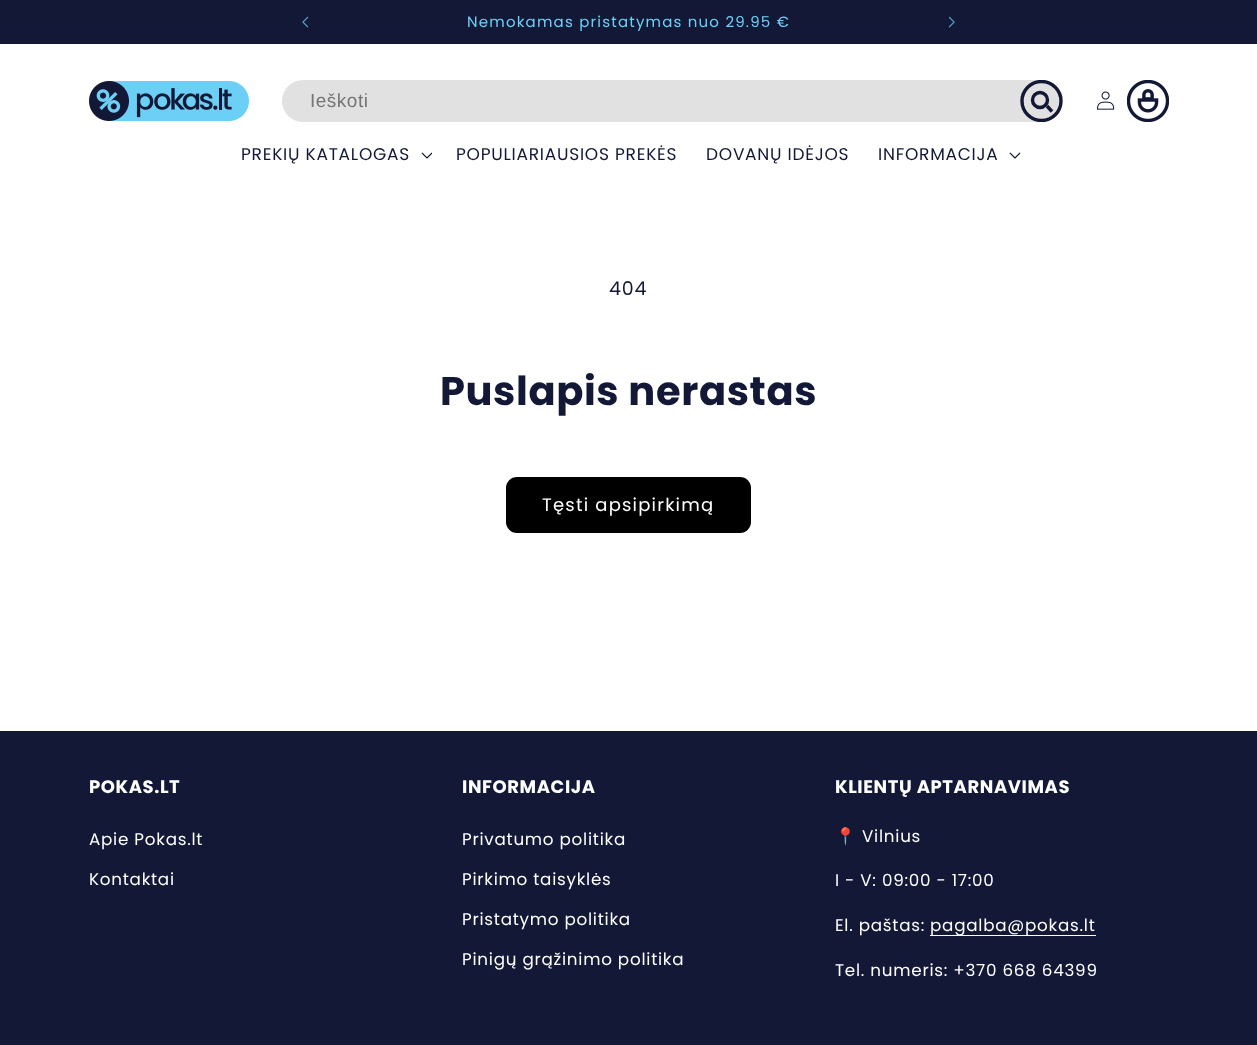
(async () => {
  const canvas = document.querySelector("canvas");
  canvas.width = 1257;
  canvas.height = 1045;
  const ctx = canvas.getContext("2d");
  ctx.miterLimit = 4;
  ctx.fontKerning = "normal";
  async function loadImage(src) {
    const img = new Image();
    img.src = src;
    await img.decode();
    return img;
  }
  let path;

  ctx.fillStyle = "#ffffff";
  ctx.fillRect(0, 0, 1257, 1045);
  ctx.fillStyle = "#121836";
  ctx.fillRect(0, 0, 1257, 44);
  ctx.drawImage(await loadImage("img/1.png"), 302, 16, 7, 12);
  ctx.drawImage(await loadImage("img/2.png"), 948, 16, 7, 12);
  ctx.drawImage(await loadImage("img/3.png"), 89, 81, 160, 40);
  ctx.fillStyle = "#e1e1e1";
  ctx.beginPath();
  ctx.roundRect(282, 80, 779, 42, 21);
  ctx.fill();
  ctx.save();
  ctx.beginPath();
  ctx.rect(1015, 80, 53, 42);
  ctx.clip();
  ctx.beginPath();
  ctx.arc(1041.5, 101, 19.5, 0, Math.PI * 2);
  ctx.strokeStyle = "#121836";
  ctx.lineWidth = 3.4;
  ctx.stroke();
  ctx.restore();
  ctx.beginPath();
  ctx.arc(1040, 100, 7.5, 0, Math.PI * 2);
  ctx.strokeStyle = "#121836";
  ctx.lineWidth = 3.4;
  ctx.stroke();
  path = new Path2D("M1047 106L1052 111.5");
  ctx.stroke(path);
  ctx.drawImage(await loadImage("img/4.png"), 1097, 91, 18, 19);
  ctx.drawImage(await loadImage("img/5.png"), 1127, 80, 42, 42);
  ctx.drawImage(await loadImage("img/6.png"), 421, 152, 11, 7);
  ctx.drawImage(await loadImage("img/7.png"), 1009, 152, 12, 7);
  ctx.fillStyle = "#000000";
  ctx.beginPath();
  ctx.roundRect(506, 477, 245, 56, 11);
  ctx.fill();
  ctx.fillStyle = "#121836";
  ctx.fillRect(0, 731, 1257, 314);
  ctx.fillStyle = "#ffffff";
  ctx.fillRect(930, 935, 166, 1);
  ctx.letterSpacing = "1.2px";
  ctx.font = "15px Poppins";
  ctx.fillStyle = "#6cd0f6";
  ctx.fillText("Nemokamas pristatymas nuo 29.95 €", 467, 27);
  ctx.letterSpacing = "0.5px";
  ctx.font = "19px Liberation Sans";
  ctx.fillStyle = "#757575";
  ctx.fillText("Ieškoti", 310, 107);
  ctx.letterSpacing = "0.75px";
  ctx.font = "17px Poppins";
  ctx.fillStyle = "#121836";
  for (const [text, x, y] of [
    ["PREKIŲ KATALOGAS", 241, 160],
    ["POPULIARIAUSIOS PREKĖS", 456, 160],
    ["DOVANŲ IDĖJOS", 706, 160],
    ["INFORMACIJA", 878, 160],
  ]) {
    ctx.fillText(text, x, y);
  }
  ctx.font = "19px Poppins";
  ctx.fillText("404", 609, 295);
  ctx.letterSpacing = "0.6px";
  ctx.font = "bold 40px Poppins";
  ctx.fillText("Puslapis nerastas", 440, 405);
  ctx.letterSpacing = "1.2px";
  ctx.font = "18px Poppins";
  ctx.fillStyle = "#ffffff";
  ctx.fillText("Tęsti apsipirkimą", 542, 511);
  ctx.letterSpacing = "0.6px";
  ctx.font = "bold 18px Poppins";
  ctx.fillText("POKAS.LT", 89, 793);
  ctx.letterSpacing = "0.75px";
  ctx.font = "16.75px Poppins";
  ctx.fillText("Apie Pokas.lt", 89, 845);
  ctx.fillText("Kontaktai", 89, 885);
  ctx.letterSpacing = "0.6px";
  ctx.font = "bold 18px Poppins";
  ctx.fillText("INFORMACIJA", 462, 793);
  ctx.letterSpacing = "0.75px";
  ctx.font = "16.75px Poppins";
  for (const [text, x, y] of [
    ["Privatumo politika", 462, 845],
    ["Pirkimo taisyklės", 462, 885],
    ["Pristatymo politika", 462, 925],
    ["Pinigų grąžinimo politika", 462, 965],
  ]) {
    ctx.fillText(text, x, y);
  }
  ctx.letterSpacing = "0.6px";
  ctx.font = "bold 18px Poppins";
  ctx.fillText("KLIENTŲ APTARNAVIMAS", 835, 793);
  ctx.letterSpacing = "0.75px";
  ctx.font = "16.75px Noto Color Emoji";
  ctx.fillText("📍", 835, 842);
  ctx.font = "16.75px Poppins";
  for (const [text, x, y] of [
    ["Vilnius", 862, 842],
    ["I - V: 09:00 - 17:00", 835, 886],
    ["El. paštas:", 835, 931],
    ["pagalba@pokas.lt", 930, 931],
    ["Tel. numeris: +370 668 64399", 835, 976],
  ]) {
    ctx.fillText(text, x, y);
  }
})();
